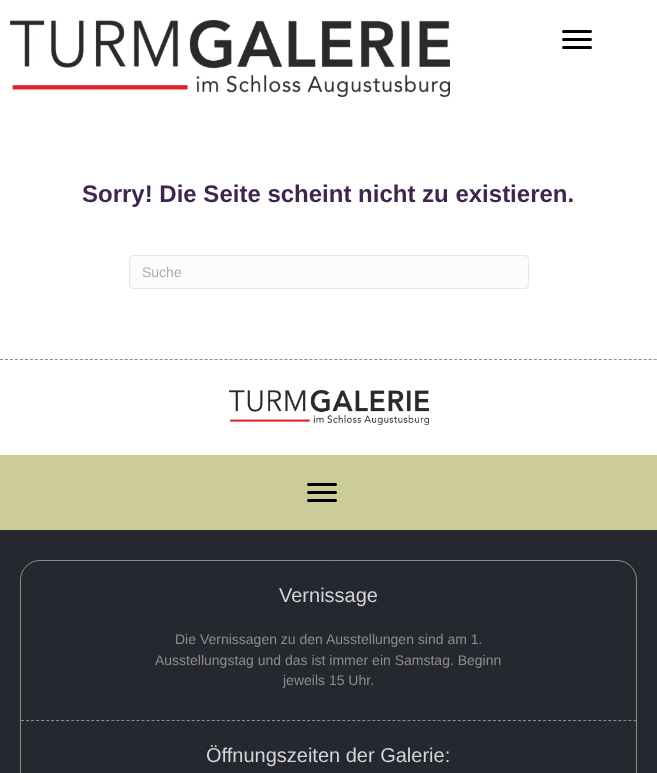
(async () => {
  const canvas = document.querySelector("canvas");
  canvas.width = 657;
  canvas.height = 773;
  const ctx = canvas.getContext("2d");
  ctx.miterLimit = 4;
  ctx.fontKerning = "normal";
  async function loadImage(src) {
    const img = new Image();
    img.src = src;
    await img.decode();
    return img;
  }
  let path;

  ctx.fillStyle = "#ffffff";
  ctx.fillRect(0, 0, 657, 773);
  ctx.drawImage(await loadImage("img/1.png"), 10, 20, 440, 77);
  ctx.fillStyle = "#000000";
  ctx.beginPath();
  ctx.roundRect(562, 38, 30, 3, 1.5);
  ctx.fill();
  ctx.beginPath();
  ctx.roundRect(562, 30, 30, 3, 1.5);
  ctx.fill();
  ctx.beginPath();
  ctx.roundRect(562, 46, 30, 3, 1.5);
  ctx.fill();
  ctx.fillStyle = "#fcfcfc";
  ctx.beginPath();
  ctx.roundRect(129.5, 255.5, 399, 33, 3.5);
  ctx.fill();
  ctx.strokeStyle = "#e6e6e6";
  ctx.stroke();
  path = new Path2D("M0 359.5H657");
  ctx.strokeStyle = "#8e8c92";
  ctx.setLineDash([3, 1.99]);
  ctx.stroke(path);
  ctx.drawImage(await loadImage("img/2.png"), 229, 390, 200, 35);
  ctx.fillStyle = "#cccc99";
  ctx.fillRect(0, 455, 657, 75);
  ctx.fillStyle = "#000000";
  ctx.beginPath();
  ctx.roundRect(307, 491, 30, 3, 1.5);
  ctx.fill();
  ctx.beginPath();
  ctx.roundRect(307, 483, 30, 3, 1.5);
  ctx.fill();
  ctx.beginPath();
  ctx.roundRect(307, 499, 30, 3, 1.5);
  ctx.fill();
  ctx.fillStyle = "#25282e";
  ctx.fillRect(0, 530, 657, 243);
  ctx.beginPath();
  ctx.roundRect(20.5, 560.5, 616, 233, 19.5);
  ctx.setLineDash([]);
  ctx.stroke();
  path = new Path2D("M21 720.5H636");
  ctx.setLineDash([3, 2.02]);
  ctx.stroke(path);
  ctx.font = "bold 24px Liberation Sans";
  ctx.fillStyle = "#402550";
  ctx.fillText("Sorry! Die Seite scheint nicht zu existieren.", 82, 202);
  ctx.font = "14px Liberation Sans";
  ctx.fillStyle = "#b1a6b7";
  ctx.fillText("Suche", 142, 277);
  ctx.font = "20px Liberation Sans";
  ctx.fillStyle = "#d5d3db";
  ctx.fillText("Vernissage", 279, 602);
  ctx.font = "14px Liberation Sans";
  ctx.fillStyle = "#8e8c92";
  for (const [text, x, y] of [
    ["Die Vernissagen zu den Ausstellungen sind am 1.", 175, 644],
    ["Ausstellungstag und das ist immer ein Samstag. Beginn", 155, 665],
    ["jeweils 15 Uhr.", 283, 685],
  ]) {
    ctx.fillText(text, x, y);
  }
  ctx.font = "20px Liberation Sans";
  ctx.fillStyle = "#d5d3db";
  ctx.fillText("Öffnungszeiten der Galerie:", 206, 762);
})();
